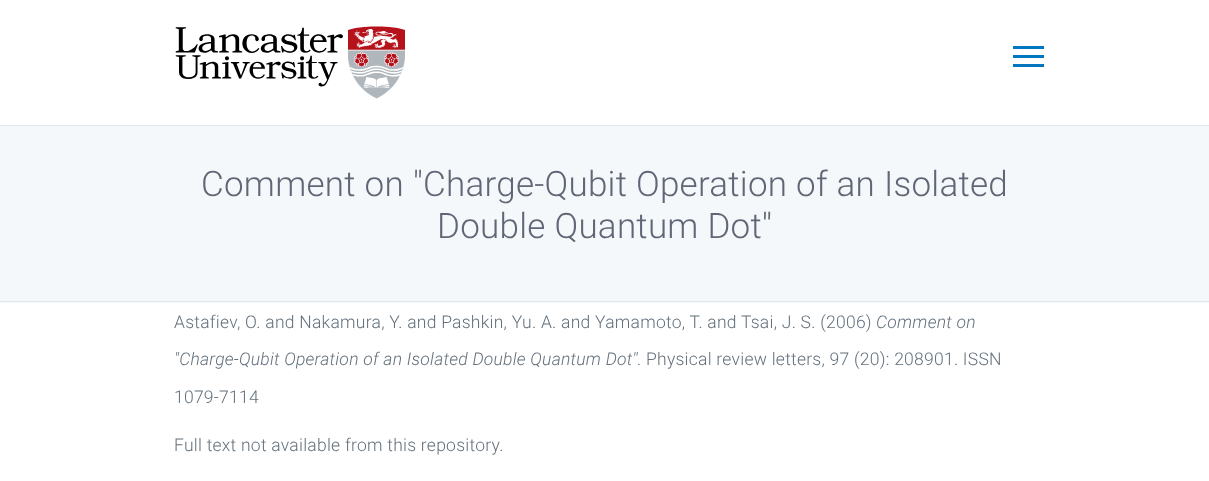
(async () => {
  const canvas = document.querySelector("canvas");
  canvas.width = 1209;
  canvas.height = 481;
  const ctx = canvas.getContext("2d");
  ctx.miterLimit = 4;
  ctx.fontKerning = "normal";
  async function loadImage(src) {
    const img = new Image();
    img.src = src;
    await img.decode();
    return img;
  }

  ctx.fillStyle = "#ffffff";
  ctx.fillRect(0, 0, 1209, 481);
  ctx.drawImage(await loadImage("img/1.png"), 175, 26, 230, 73);
  for (const [x, y, w, h, color] of [
    [1013, 55, 31, 3, "#0076c1"],
    [1013, 46, 31, 3, "#0076c1"],
    [1013, 64, 31, 3, "#0076c1"],
    [0, 126, 1209, 177, "#f5f8fa"],
    [0, 125, 1209, 1, "#e1e8ee"],
    [0, 301, 1209, 1, "#e1e8ee"],
  ]) {
    ctx.fillStyle = color;
    ctx.fillRect(x, y, w, h);
  }
  ctx.letterSpacing = "0.25px";
  ctx.font = "300 35px Roboto";
  ctx.fillStyle = "#606676";
  ctx.fillText("Comment on \"Charge-Qubit Operation of an Isolated", 201, 196);
  ctx.fillText("Double Quantum Dot''", 437, 238);
  ctx.font = "300 17.5px Roboto";
  ctx.fillStyle = "#64717c";
  ctx.fillText("Astafiev, O. and Nakamura, Y. and Pashkin, Yu. A. and Yamamoto, T. and", 174, 328);
  ctx.fillText("Tsai, J. S. (2006)", 741, 328);
  ctx.font = "italic 300 17.5px Roboto";
  ctx.fillText("Comment on", 876, 328);
  ctx.fillText("\"Charge-Qubit Operation of an Isolated Double Quantum Dot''.", 174, 365);
  ctx.font = "300 17.5px Roboto";
  for (const [text, x, y] of [
    ["Physical review letters, 97 (20): 208901. ISSN", 646, 365],
    ["1079-7114", 174, 403],
    ["Full text not available from this repository.", 174, 451],
  ]) {
    ctx.fillText(text, x, y);
  }
})();
